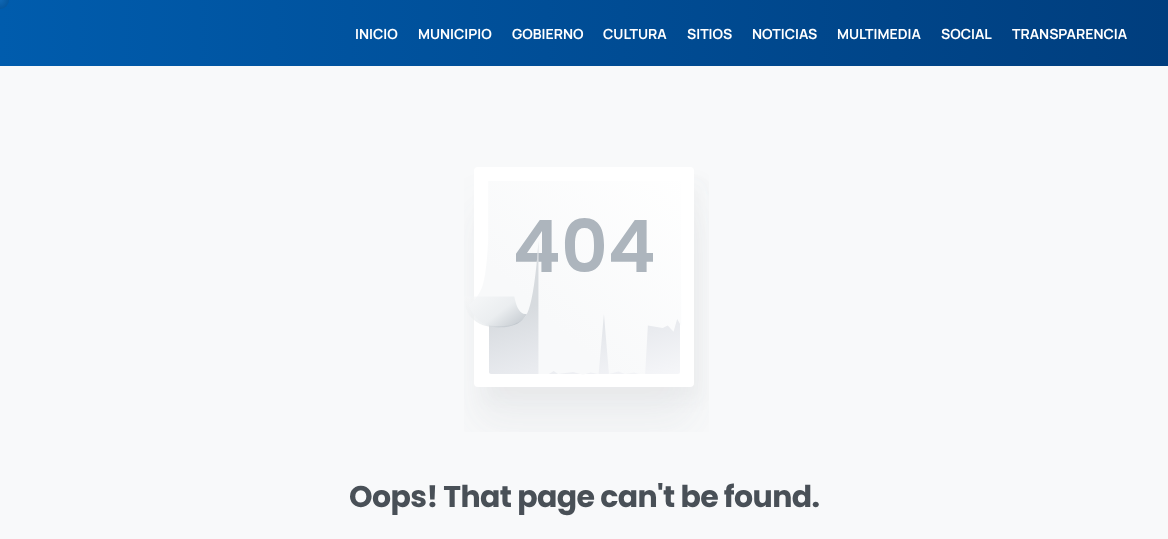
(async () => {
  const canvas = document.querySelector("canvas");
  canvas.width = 1168;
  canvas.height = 539;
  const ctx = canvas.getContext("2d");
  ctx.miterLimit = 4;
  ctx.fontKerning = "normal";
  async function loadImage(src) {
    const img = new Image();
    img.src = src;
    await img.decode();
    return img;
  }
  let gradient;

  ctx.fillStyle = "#f8f9fa";
  ctx.fillRect(0, 0, 1168, 539);
  gradient = ctx.createLinearGradient(0, 270, 1168, 269);
  gradient.addColorStop(0, "#005cad");
  gradient.addColorStop(1, "#003e7e");
  ctx.fillStyle = gradient;
  ctx.fillRect(0, 0, 1168, 66);
  gradient = ctx.createRadialGradient(0, 0, 0, 0, 0, 13);
  gradient.addColorStop(0.1, "#0f66b2");
  gradient.addColorStop(1, "#004e93");
  ctx.fillStyle = gradient;
  ctx.beginPath();
  ctx.arc(0, 0, 9, 0, Math.PI * 2);
  ctx.fill();
  ctx.drawImage(await loadImage("img/1.png"), 464, 167, 245, 265);
  ctx.font = "bold 14px Manrope";
  ctx.fillStyle = "#ffffff";
  for (const [text, x, y] of [
    ["INICIO", 355, 39],
    ["MUNICIPIO", 418, 39],
    ["GOBIERNO", 512, 39],
    ["CULTURA", 603, 39],
    ["SITIOS", 687, 39],
    ["NOTICIAS", 752, 39],
    ["MULTIMEDIA", 837, 39],
    ["SOCIAL", 941, 39],
    ["TRANSPARENCIA", 1012, 39],
  ]) {
    ctx.fillText(text, x, y);
  }
  ctx.letterSpacing = "-0.6px";
  ctx.font = "bold 30px Poppins";
  ctx.fillStyle = "#495057";
  ctx.fillText("Oops! That page can't be found.", 349, 507);
})();
